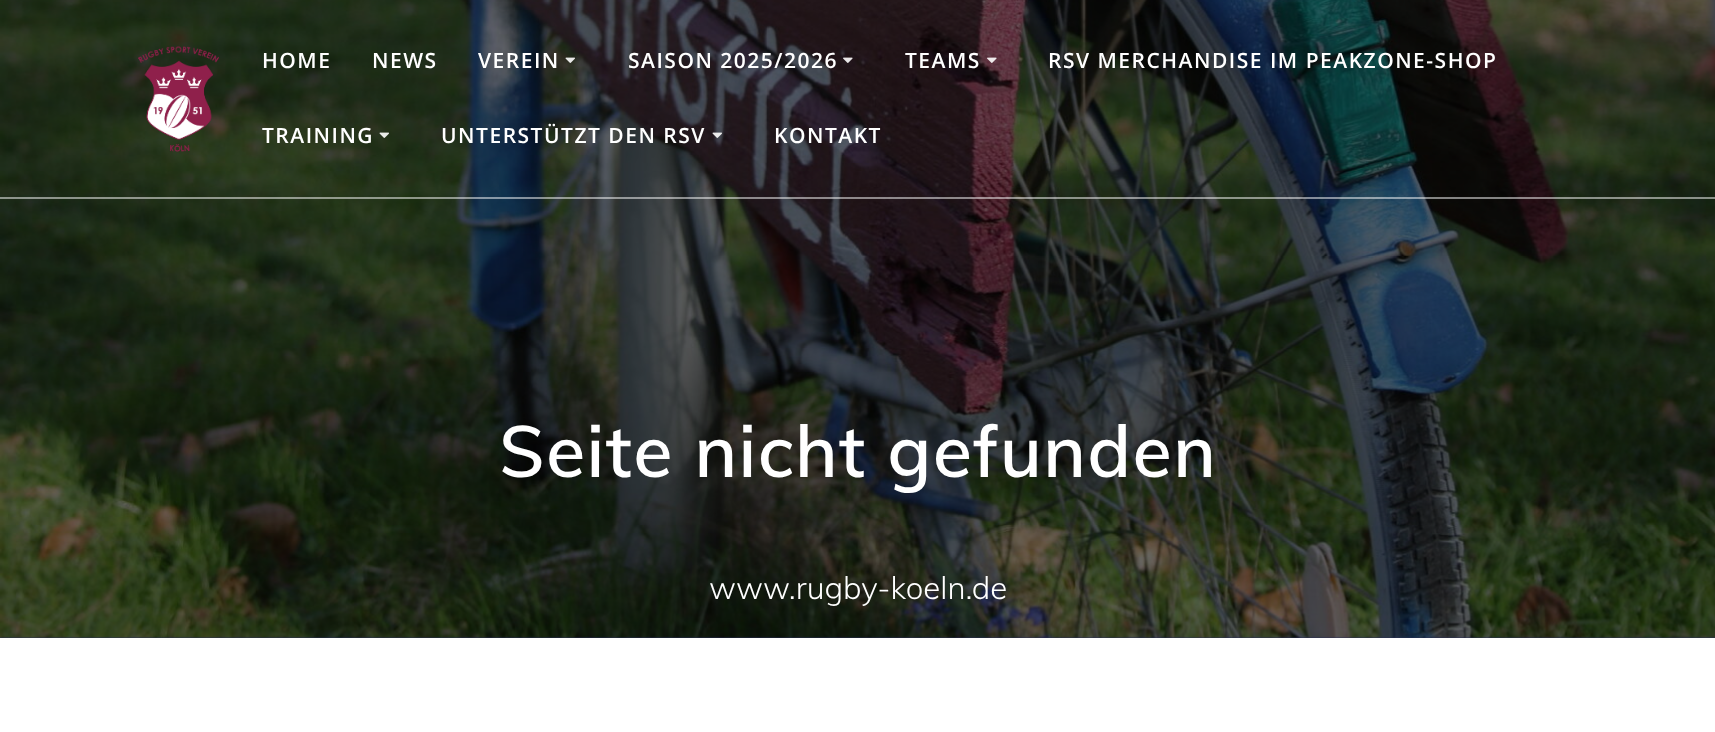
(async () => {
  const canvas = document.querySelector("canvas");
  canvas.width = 1715;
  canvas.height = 732;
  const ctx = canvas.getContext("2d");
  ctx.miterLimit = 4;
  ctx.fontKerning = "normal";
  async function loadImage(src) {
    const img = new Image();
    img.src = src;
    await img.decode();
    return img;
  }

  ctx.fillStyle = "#ffffff";
  ctx.fillRect(0, 0, 1715, 732);
  ctx.fillStyle = "#2a2e57";
  ctx.fillRect(0, 636, 1715, 2);
  ctx.drawImage(await loadImage("img/7.png"), 0, 0, 1715, 638);
  ctx.fillStyle = "rgba(255, 255, 255, 0.5)";
  ctx.fillRect(0, 197, 1715, 2);
  ctx.drawImage(await loadImage("img/1.png"), 138, 46, 81, 106);
  ctx.drawImage(await loadImage("img/2.png"), 565, 57, 10, 6);
  ctx.drawImage(await loadImage("img/3.png"), 843, 57, 10, 6);
  ctx.drawImage(await loadImage("img/4.png"), 987, 57, 10, 6);
  ctx.drawImage(await loadImage("img/5.png"), 379, 132, 10, 6);
  ctx.drawImage(await loadImage("img/6.png"), 712, 132, 10, 6);
  ctx.drawImage(await loadImage("img/8.png"), 1059, 160, 8, 11);
  ctx.letterSpacing = "1.5px";
  ctx.font = "600 21px Open Sans";
  ctx.fillStyle = "#ffffff";
  for (const [text, x, y] of [
    ["HOME", 262, 68],
    ["NEWS", 372, 68],
    ["VEREIN", 478, 68],
    ["SAISON 2025/2026", 628, 68],
    ["TEAMS", 905, 68],
    ["RSV MERCHANDISE IM PEAKZONE-SHOP", 1048, 68],
    ["TRAINING", 262, 143],
    ["UNTERSTÜTZT DEN RSV", 441, 143],
    ["KONTAKT", 774, 143],
  ]) {
    ctx.fillText(text, x, y);
  }
  ctx.letterSpacing = "1.35px";
  ctx.font = "600 72px Muli";
  ctx.fillText("Seite nicht gefunden", 499, 477);
  ctx.letterSpacing = "0px";
  ctx.font = "300 31.25px Muli";
  ctx.fillText("www.rugby-koeln.de", 709, 599);
})();
